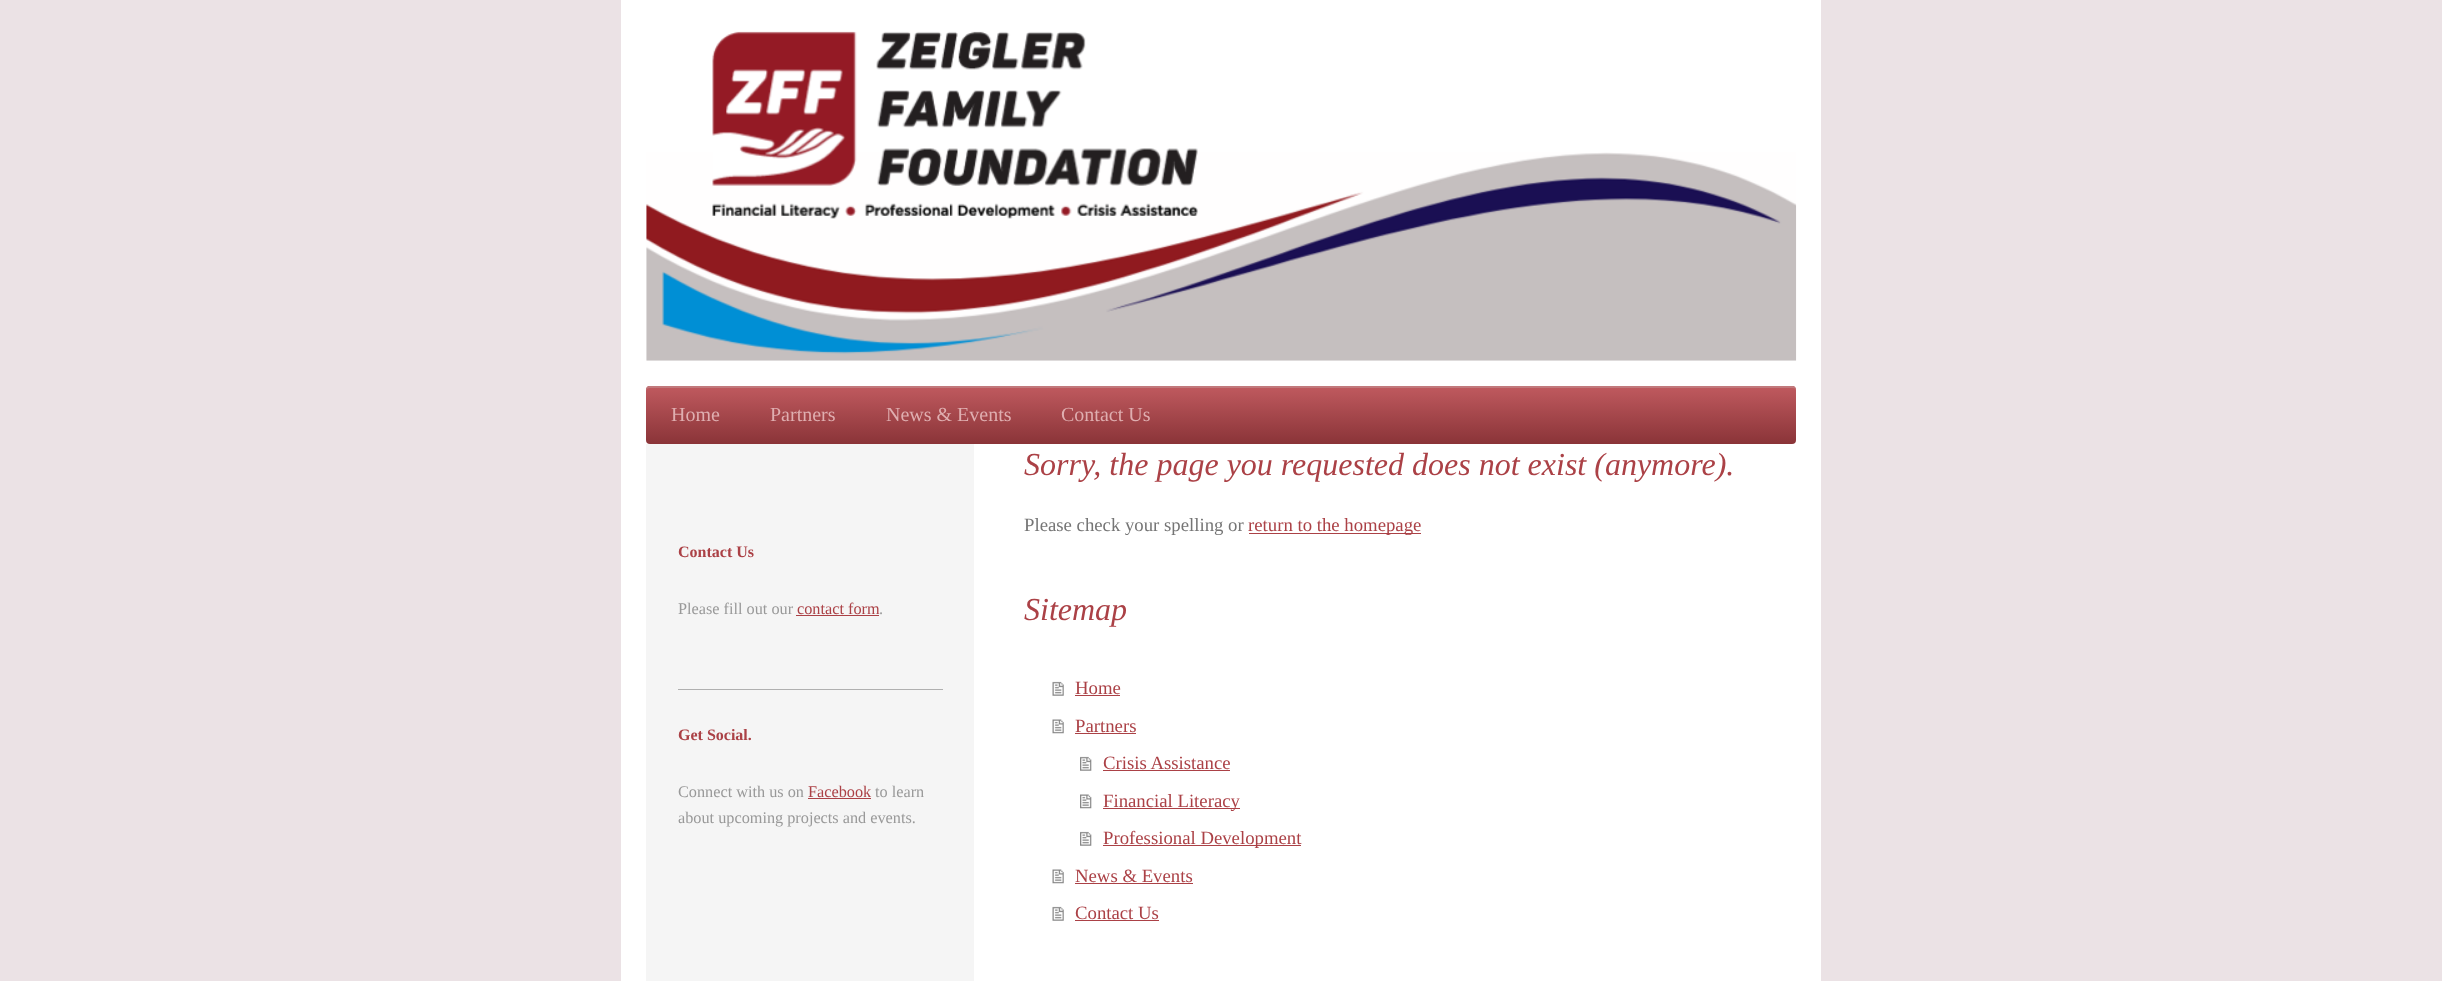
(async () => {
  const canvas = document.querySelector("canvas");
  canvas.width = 2442;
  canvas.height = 981;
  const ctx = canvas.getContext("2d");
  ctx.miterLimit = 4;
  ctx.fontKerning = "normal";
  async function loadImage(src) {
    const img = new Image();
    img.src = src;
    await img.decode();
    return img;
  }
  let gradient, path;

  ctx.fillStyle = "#ebe2e5";
  ctx.fillRect(0, 0, 2442, 981);
  ctx.fillStyle = "#ffffff";
  ctx.fillRect(621, 0, 1200, 981);
  ctx.drawImage(await loadImage("img/2.png"), 646, 152, 1151, 209);
  ctx.drawImage(await loadImage("img/1.png"), 712, 31, 486, 188);
  gradient = ctx.createLinearGradient(646, 386, 646, 444);
  gradient.addColorStop(0, "#c05a5f");
  gradient.addColorStop(1, "#8a3438");
  ctx.fillStyle = gradient;
  ctx.beginPath();
  ctx.roundRect(646, 386, 1150, 58, 4);
  ctx.fill();
  ctx.fillStyle = "#a74044";
  path = new Path2D("M650 388H1792C1795 388 1796 389 1796 391C1796 388 1795 386 1792 386H650C647 386 646 388 646 391C646 389 648 388 650 388Z");
  ctx.fill(path);
  ctx.fillStyle = "rgba(255, 255, 255, 0.3)";
  path = new Path2D("M650 388H1792C1795 388 1796 389 1796 391C1796 388 1795 386 1792 386H650C647 386 646 388 646 391C646 389 648 388 650 388Z");
  ctx.fill(path);
  ctx.fillStyle = "#f5f5f5";
  ctx.fillRect(646, 444, 328, 537);
  ctx.fillStyle = "#ab4146";
  ctx.fillRect(1249, 533, 172, 1);
  ctx.drawImage(await loadImage("img/3.png"), 1052, 681, 12, 15);
  ctx.fillRect(1075, 695, 45, 1);
  ctx.drawImage(await loadImage("img/4.png"), 1052, 719, 12, 15);
  ctx.fillRect(1075, 733, 61, 1);
  ctx.drawImage(await loadImage("img/5.png"), 1080, 756, 12, 15);
  ctx.fillRect(1103, 770, 127, 1);
  ctx.drawImage(await loadImage("img/6.png"), 1080, 794, 12, 15);
  ctx.fillRect(1103, 808, 137, 1);
  ctx.drawImage(await loadImage("img/5.png"), 1080, 831, 12, 15);
  ctx.fillRect(1103, 845, 198, 1);
  ctx.drawImage(await loadImage("img/4.png"), 1052, 869, 12, 15);
  ctx.fillRect(1075, 883, 118, 1);
  ctx.drawImage(await loadImage("img/3.png"), 1052, 906, 12, 15);
  for (const [x, y, w, h, color] of [
    [1075, 920, 84, 1, "#ab4146"],
    [796, 615, 83, 1, "#ab4146"],
    [678, 689, 265, 1, "#b0b0b0"],
    [808, 798, 63, 1, "#ab4146"],
  ]) {
    ctx.fillStyle = color;
    ctx.fillRect(x, y, w, h);
  }
  ctx.font = "20px Liberation Serif";
  ctx.fillStyle = "#dfaeb0";
  for (const [text, x, y] of [
    ["Home", 671, 421],
    ["Partners", 770, 421],
    ["News & Events", 886, 421],
    ["Contact Us", 1061, 421],
  ]) {
    ctx.fillText(text, x, y);
  }
  ctx.font = "italic 32px Liberation Serif";
  ctx.fillStyle = "#ab4146";
  ctx.fillText("Sorry, the page you requested does not exist (anymore).", 1024, 475);
  ctx.font = "18.75px Liberation Serif";
  ctx.fillStyle = "#757575";
  ctx.fillText("Please check your spelling or", 1024, 531);
  ctx.fillStyle = "#ab4146";
  ctx.fillText("return to the homepage", 1248, 531);
  ctx.font = "italic 32px Liberation Serif";
  ctx.fillText("Sitemap", 1024, 620);
  ctx.font = "18.75px Liberation Serif";
  for (const [text, x, y] of [
    ["Home", 1075, 694],
    ["Partners", 1075, 732],
    ["Crisis Assistance", 1103, 769],
    ["Financial Literacy", 1103, 807],
    ["Professional Development", 1103, 844],
    ["News & Events", 1075, 882],
    ["Contact Us", 1075, 919],
  ]) {
    ctx.fillText(text, x, y);
  }
  ctx.font = "bold 16px Liberation Serif";
  ctx.fillText("Contact Us", 678, 557);
  ctx.font = "16.25px Liberation Serif";
  ctx.fillStyle = "#999999";
  ctx.fillText("Please fill out our", 678, 614);
  ctx.fillStyle = "#ab4146";
  ctx.fillText("contact form", 797, 614);
  ctx.fillStyle = "#999999";
  ctx.fillText(".", 879, 614);
  ctx.font = "bold 16px Liberation Serif";
  ctx.fillStyle = "#ab4146";
  ctx.fillText("Get Social.", 678, 740);
  ctx.font = "16.25px Liberation Serif";
  ctx.fillStyle = "#999999";
  ctx.fillText("Connect with us on", 678, 797);
  ctx.fillStyle = "#ab4146";
  ctx.fillText("Facebook", 808, 797);
  ctx.fillStyle = "#999999";
  ctx.fillText("to learn", 875, 797);
  ctx.fillText("about upcoming projects and events.", 678, 823);
})();
